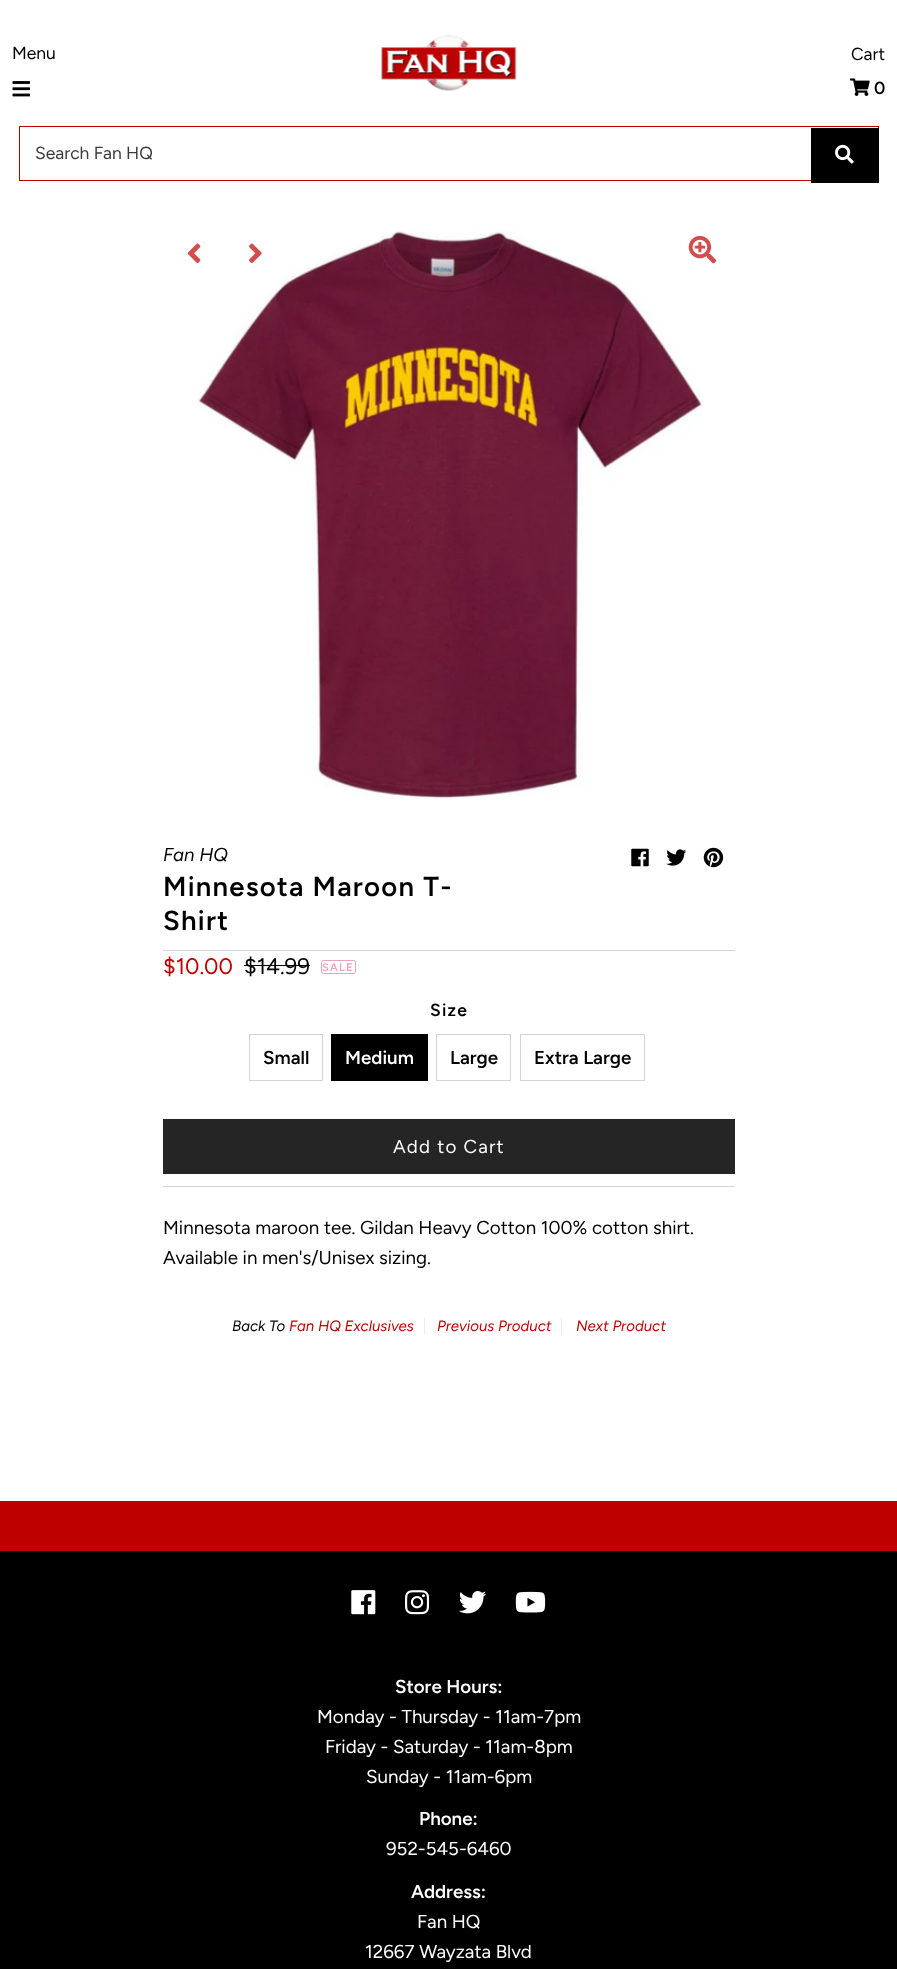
(async () => {
  const canvas = document.querySelector("canvas");
  canvas.width = 897;
  canvas.height = 1969;
  const ctx = canvas.getContext("2d");
  ctx.miterLimit = 4;
  ctx.fontKerning = "normal";
  async function loadImage(src) {
    const img = new Image();
    img.src = src;
    await img.decode();
    return img;
  }

  ctx.fillStyle = "#ffffff";
  ctx.fillRect(0, 0, 897, 1969);
  ctx.drawImage(await loadImage("img/1.png"), 12, 81, 18, 16);
  ctx.drawImage(await loadImage("img/2.png"), 381, 35, 136, 56);
  ctx.drawImage(await loadImage("img/3.png"), 850, 78, 20, 18);
  ctx.strokeStyle = "#be0000";
  ctx.strokeRect(19.5, 126.5, 859, 54);
  ctx.fillStyle = "#000000";
  ctx.fillRect(811, 128, 68, 55);
  ctx.drawImage(await loadImage("img/4.png"), 835, 144, 19, 20);
  ctx.drawImage(await loadImage("img/6.png"), 197, 229, 506, 571);
  ctx.drawImage(await loadImage("img/5.png"), 187, 243, 14, 20);
  ctx.drawImage(await loadImage("img/7.png"), 688, 235, 29, 29);
  ctx.drawImage(await loadImage("img/8.png"), 249, 243, 13, 20);
  ctx.drawImage(await loadImage("img/9.png"), 631, 848, 18, 19);
  ctx.drawImage(await loadImage("img/10.png"), 666, 849, 21, 17);
  ctx.drawImage(await loadImage("img/11.png"), 703, 847, 21, 21);
  for (const [x, y, w, h, color] of [
    [163, 950, 572, 1, "#d5d5d5"],
    [163, 1186, 572, 1, "#d5d5d5"],
    [244, 965, 66, 1, "#000000"],
  ]) {
    ctx.fillStyle = color;
    ctx.fillRect(x, y, w, h);
  }
  ctx.beginPath();
  ctx.roundRect(321.5, 960.5, 34, 13, 2);
  ctx.strokeStyle = "#eba1b8";
  ctx.stroke();
  ctx.strokeStyle = "#d5d5d5";
  ctx.strokeRect(249.5, 1034.5, 73, 46);
  ctx.fillRect(331, 1034, 97, 47);
  ctx.strokeRect(436.5, 1034.5, 74, 46);
  ctx.strokeRect(520.5, 1034.5, 124, 46);
  for (const [x, y, w, h, color] of [
    [163, 1119, 572, 55, "#252525"],
    [424, 1318, 1, 17, "#eeeeee"],
    [561, 1318, 1, 17, "#eeeeee"],
    [0, 1501, 897, 50, "#be0000"],
    [0, 1551, 897, 418, "#000000"],
  ]) {
    ctx.fillStyle = color;
    ctx.fillRect(x, y, w, h);
  }
  ctx.drawImage(await loadImage("img/12.png"), 351, 1590, 25, 25);
  ctx.drawImage(await loadImage("img/13.png"), 405, 1590, 25, 25);
  ctx.drawImage(await loadImage("img/14.png"), 459, 1591, 28, 23);
  ctx.drawImage(await loadImage("img/15.png"), 515, 1591, 31, 22);
  ctx.font = "17.5px Figtree";
  ctx.fillText("Menu", 12, 59);
  ctx.fillText("Cart", 851, 60);
  ctx.font = "600 17.5px Figtree";
  ctx.fillText("0", 874, 94);
  ctx.font = "17.5px Figtree";
  ctx.fillStyle = "#3b3b3b";
  ctx.fillText("Search Fan HQ", 35, 159);
  ctx.font = "italic 18.75px Figtree";
  ctx.fillStyle = "#000000";
  ctx.fillText("Fan HQ", 163, 861);
  ctx.letterSpacing = "1.25px";
  ctx.font = "600 27.5px Figtree";
  ctx.fillText("Minnesota Maroon T-", 163, 896);
  ctx.fillText("Shirt", 163, 930);
  ctx.letterSpacing = "0px";
  ctx.font = "22.5px Figtree";
  ctx.fillStyle = "#bf0002";
  ctx.fillText("$10.00", 163, 974);
  ctx.fillStyle = "#000000";
  ctx.fillText("$14.99", 244, 974);
  ctx.letterSpacing = "1.25px";
  ctx.font = "600 11px Figtree";
  ctx.fillStyle = "#eba1b8";
  ctx.fillText("SALE", 322, 971);
  ctx.font = "600 17.5px Figtree";
  ctx.fillStyle = "#000000";
  ctx.fillText("Size", 430, 1016);
  ctx.letterSpacing = "0px";
  ctx.font = "600 18.75px Figtree";
  ctx.fillText("Small", 263, 1064);
  ctx.fillStyle = "#ffffff";
  ctx.fillText("Medium", 345, 1064);
  ctx.fillStyle = "#000000";
  ctx.fillText("Large", 450, 1064);
  ctx.fillText("Extra Large", 534, 1064);
  ctx.letterSpacing = "1.25px";
  ctx.font = "18.75px Figtree";
  ctx.fillStyle = "#ffffff";
  ctx.fillText("Add to Cart", 393, 1153);
  ctx.letterSpacing = "0px";
  ctx.fillStyle = "#000000";
  ctx.fillText("Minnesota maroon tee. Gildan Heavy Cotton 100% cotton shirt.", 163, 1234);
  ctx.fillText("Available in men's/Unisex sizing.", 163, 1264);
  ctx.font = "italic 15px Figtree";
  ctx.fillText("Back To", 232, 1331);
  ctx.fillStyle = "#bf0002";
  for (const [text, x, y] of [
    ["Fan HQ Exclusives", 289, 1331],
    ["Previous Product", 437, 1331],
    ["Next Product", 576, 1331],
  ]) {
    ctx.fillText(text, x, y);
  }
  ctx.font = "600 18.75px Figtree";
  ctx.fillStyle = "#ffffff";
  ctx.fillText("Store Hours:", 395, 1693);
  ctx.font = "18.75px Figtree";
  for (const [text, x, y] of [
    ["Monday - Thursday - 11am-7pm", 317, 1723],
    ["Friday - Saturday - 11am-8pm", 325, 1753],
    ["Sunday - 11am-6pm", 366, 1783],
  ]) {
    ctx.fillText(text, x, y);
  }
  ctx.font = "600 18.75px Figtree";
  ctx.fillText("Phone:", 419, 1825);
  ctx.font = "18.75px Figtree";
  ctx.fillText("952-545-6460", 386, 1855);
  ctx.font = "600 18.75px Figtree";
  ctx.fillText("Address:", 411, 1898);
  ctx.font = "18.75px Figtree";
  ctx.fillText("Fan HQ", 417, 1928);
  ctx.fillText("12667 Wayzata Blvd", 365, 1958);
})();
